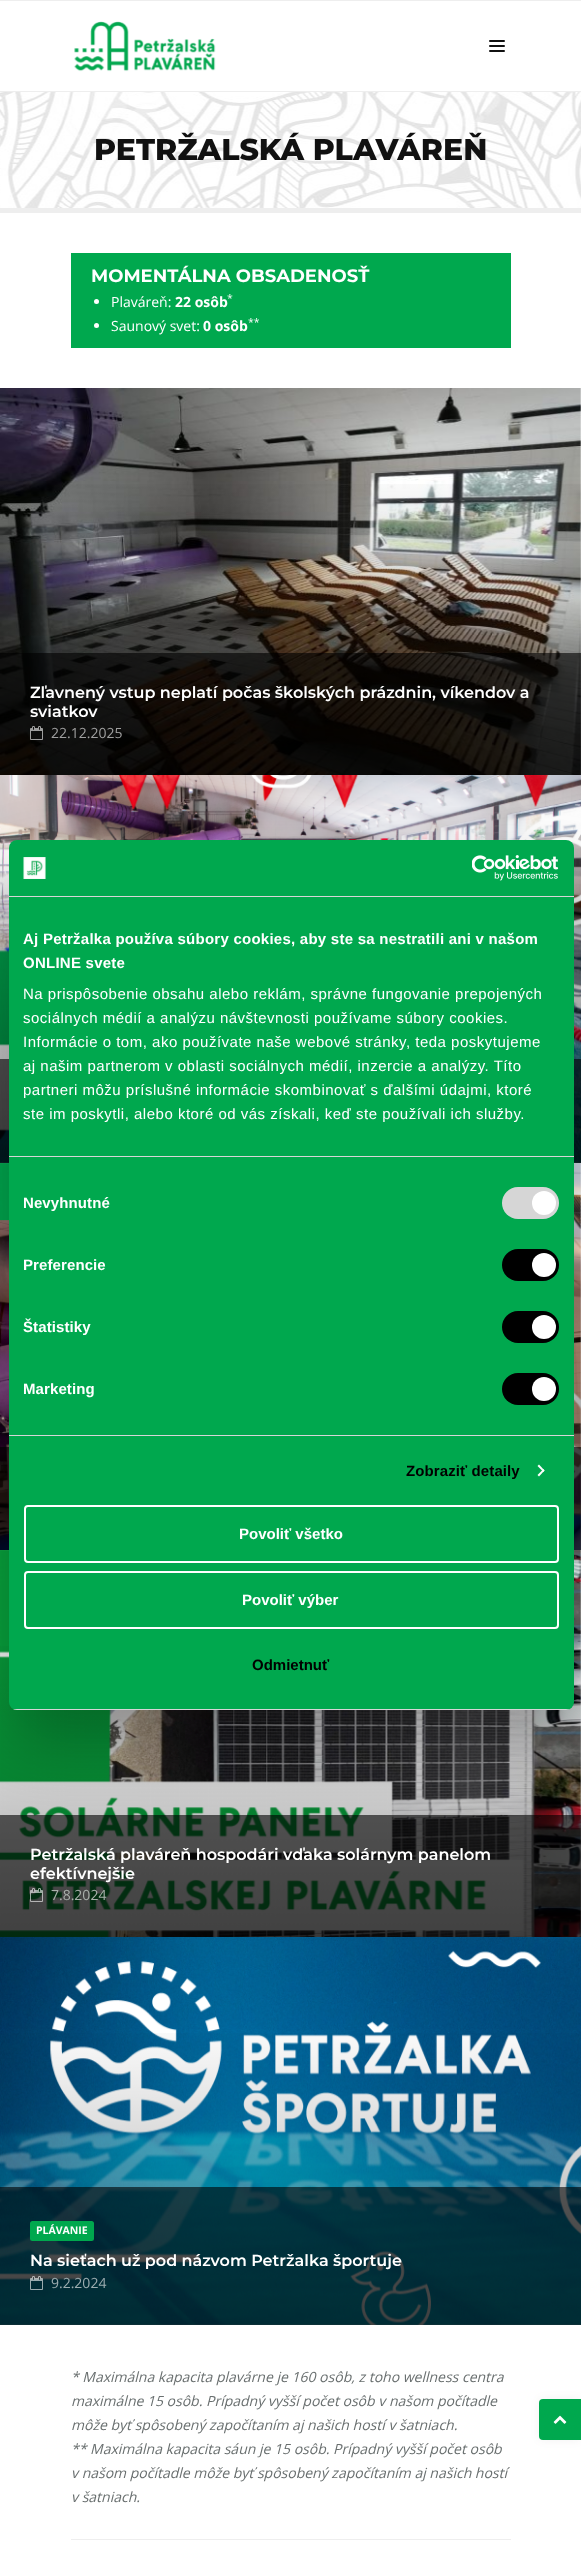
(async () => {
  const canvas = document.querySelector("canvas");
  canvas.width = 581;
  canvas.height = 2550;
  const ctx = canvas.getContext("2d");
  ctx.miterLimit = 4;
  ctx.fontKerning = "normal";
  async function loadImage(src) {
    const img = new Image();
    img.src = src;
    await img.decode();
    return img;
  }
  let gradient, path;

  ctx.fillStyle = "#ffffff";
  ctx.fillRect(0, 0, 581, 2550);
  ctx.fillStyle = "#eeeeee";
  ctx.fillRect(0, 0, 581, 1);
  ctx.fillRect(0, 91, 581, 1);
  ctx.drawImage(await loadImage("img/1.png"), 74, 21, 142, 51);
  ctx.fillStyle = "#111111";
  ctx.beginPath();
  ctx.roundRect(489, 45, 16, 2, 1);
  ctx.fill();
  ctx.beginPath();
  ctx.roundRect(489, 40, 16, 2, 1);
  ctx.fill();
  ctx.beginPath();
  ctx.roundRect(489, 50, 16, 2, 1);
  ctx.fill();
  ctx.drawImage(await loadImage("img/2.png"), 0, 92, 581, 116);
  ctx.fillStyle = "#eeeeee";
  ctx.fillRect(0, 208, 581, 5);
  ctx.fillStyle = "#00a84e";
  ctx.fillRect(71, 253, 440, 95);
  ctx.fillStyle = "#ffffff";
  ctx.beginPath();
  ctx.arc(96.5, 301.5, 2.5, 0, Math.PI * 2);
  ctx.fill();
  ctx.beginPath();
  ctx.arc(96.5, 325.5, 2.5, 0, Math.PI * 2);
  ctx.fill();
  ctx.drawImage(await loadImage("img/3.png"), 0, 388, 581, 387);
  gradient = ctx.createLinearGradient(291, 388, 291, 775);
  gradient.addColorStop(0.2, "rgba(0, 0, 0, 0)");
  gradient.addColorStop(1, "rgba(0, 0, 0, 0.36)");
  ctx.fillStyle = gradient;
  ctx.fillRect(0, 484, 581, 291);
  ctx.fillStyle = "rgba(0, 0, 0, 0.6)";
  ctx.fillRect(0, 653, 581, 122);
  ctx.drawImage(await loadImage("img/4.png"), 30, 726, 13, 14);
  ctx.drawImage(await loadImage("img/5.png"), 0, 775, 581, 388);
  gradient = ctx.createLinearGradient(291, 775, 291, 1163);
  gradient.addColorStop(0.2, "rgba(0, 0, 0, 0)");
  gradient.addColorStop(1, "rgba(0, 0, 0, 0.36)");
  ctx.fillStyle = gradient;
  ctx.fillRect(0, 871, 581, 292);
  ctx.fillStyle = "rgba(0, 0, 0, 0.6)";
  ctx.fillRect(0, 1059, 581, 104);
  ctx.drawImage(await loadImage("img/6.png"), 0, 1163, 581, 387);
  gradient = ctx.createLinearGradient(291, 1163, 291, 1550);
  gradient.addColorStop(0.2, "rgba(0, 0, 0, 0)");
  gradient.addColorStop(1, "rgba(0, 0, 0, 0.36)");
  ctx.fillStyle = gradient;
  ctx.fillRect(0, 1259, 581, 291);
  ctx.fillStyle = "rgba(0, 0, 0, 0.6)";
  ctx.fillRect(0, 1447, 581, 103);
  ctx.drawImage(await loadImage("img/7.png"), 0, 1550, 581, 387);
  gradient = ctx.createLinearGradient(291, 1550, 291, 1937);
  gradient.addColorStop(0.2, "rgba(0, 0, 0, 0)");
  gradient.addColorStop(1, "rgba(0, 0, 0, 0.36)");
  ctx.fillStyle = gradient;
  ctx.fillRect(0, 1646, 581, 291);
  ctx.fillStyle = "rgba(0, 0, 0, 0.6)";
  ctx.fillRect(0, 1815, 581, 122);
  ctx.drawImage(await loadImage("img/8.png"), 30, 1888, 13, 14);
  ctx.drawImage(await loadImage("img/9.png"), 0, 1937, 581, 388);
  gradient = ctx.createLinearGradient(291, 1937, 291, 2325);
  gradient.addColorStop(0.2, "rgba(0, 0, 0, 0)");
  gradient.addColorStop(1, "rgba(0, 0, 0, 0.36)");
  ctx.fillStyle = gradient;
  ctx.fillRect(0, 2033, 581, 292);
  ctx.fillStyle = "rgba(0, 0, 0, 0.6)";
  ctx.fillRect(0, 2187, 581, 138);
  ctx.fillStyle = "#00a84e";
  ctx.beginPath();
  ctx.roundRect(30, 2221, 64, 20, 2.5);
  ctx.fill();
  ctx.drawImage(await loadImage("img/10.png"), 30, 2276, 13, 14);
  ctx.fillStyle = "#eeeeee";
  ctx.fillRect(71, 2539, 440, 1);
  ctx.fillStyle = "rgba(0, 0, 0, 0.3)";
  ctx.filter = "blur(34px)";
  ctx.beginPath();
  ctx.roundRect(9, 872, 565, 870, 8);
  ctx.fill();
  ctx.filter = "none";
  ctx.fillStyle = "#00a84e";
  ctx.beginPath();
  ctx.roundRect(9, 840, 565, 870, 8);
  ctx.fill();
  ctx.fillStyle = "#d6d6d6";
  ctx.fillRect(9, 896, 565, 1);
  ctx.drawImage(await loadImage("img/11.png"), 23, 857, 23, 22);
  ctx.drawImage(await loadImage("img/12.png"), 472, 855, 87, 26);
  ctx.fillRect(9, 1156, 565, 1);
  ctx.fillRect(9, 1435, 565, 1);
  ctx.beginPath();
  ctx.roundRect(502, 1187, 57, 32, 16);
  ctx.fill();
  ctx.fillStyle = "#ffffff";
  ctx.beginPath();
  ctx.arc(544, 1203, 12, 0, Math.PI * 2);
  ctx.fill();
  ctx.fillStyle = "#000000";
  ctx.beginPath();
  ctx.roundRect(502, 1249, 57, 32, 16);
  ctx.fill();
  ctx.fillStyle = "#ffffff";
  ctx.beginPath();
  ctx.arc(544, 1265, 12, 0, Math.PI * 2);
  ctx.fill();
  ctx.fillStyle = "#000000";
  ctx.beginPath();
  ctx.roundRect(502, 1311, 57, 32, 16);
  ctx.fill();
  ctx.fillStyle = "#ffffff";
  ctx.beginPath();
  ctx.arc(544, 1327, 12, 0, Math.PI * 2);
  ctx.fill();
  ctx.fillStyle = "#000000";
  ctx.beginPath();
  ctx.roundRect(502, 1373, 57, 32, 16);
  ctx.fill();
  ctx.fillStyle = "#ffffff";
  ctx.beginPath();
  ctx.arc(544, 1389, 12, 0, Math.PI * 2);
  ctx.fill();
  path = new Path2D("M539 1464.5L544.5 1470.5L543.5 1472L537.5 1466Z");
  ctx.fill(path);
  path = new Path2D("M543.5 1469L544.5 1470.5L539 1476.5L537.5 1475Z");
  ctx.fill(path);
  ctx.save();
  ctx.beginPath();
  ctx.roundRect(9, 840, 565, 870, 8);
  ctx.clip();
  ctx.fillStyle = "#d6d6d6";
  ctx.fillRect(9, 1709, 565, 1);
  ctx.restore();
  ctx.beginPath();
  ctx.roundRect(25, 1506, 533, 56, 3);
  ctx.strokeStyle = "#ffffff";
  ctx.lineWidth = 2;
  ctx.stroke();
  ctx.beginPath();
  ctx.roundRect(25, 1572, 533, 56, 3);
  ctx.stroke();
  ctx.fillStyle = "rgba(0, 0, 0, 0.05)";
  ctx.filter = "blur(5px)";
  ctx.beginPath();
  ctx.roundRect(539, 2399, 42, 41, 4);
  ctx.fill();
  ctx.filter = "none";
  ctx.fillStyle = "#00a84e";
  ctx.beginPath();
  ctx.roundRect(539, 2399, 42, 41, [4, 0, 0, 4]);
  ctx.fill();
  ctx.drawImage(await loadImage("img/13.png"), 553, 2415, 14, 9);
  ctx.font = "800 30px Montserrat";
  ctx.fillStyle = "#111111";
  ctx.fillText("PETRŽALSKÁ PLAVÁREŇ", 94, 160);
  ctx.font = "bold 18px Montserrat";
  ctx.fillStyle = "#ffffff";
  ctx.fillText("MOMENTÁLNA OBSADENOSŤ", 91, 282);
  ctx.font = "14px Open Sans";
  ctx.fillText("Plaváreň:", 111, 307);
  ctx.font = "bold 14px Open Sans";
  ctx.fillText("22 osôb", 175, 307);
  ctx.font = "10.5px Open Sans";
  ctx.fillText("*", 227, 302);
  ctx.font = "14px Open Sans";
  ctx.fillText("Saunový svet:", 111, 331);
  ctx.font = "bold 14px Open Sans";
  ctx.fillText("0 osôb", 203, 331);
  ctx.font = "10.5px Open Sans";
  ctx.fillText("**", 248, 326);
  ctx.font = "600 16px Montserrat";
  ctx.fillText("Zľavnený vstup neplatí počas školských prázdnin, víkendov a", 30, 698);
  ctx.fillText("sviatkov", 30, 717);
  ctx.font = "14px Open Sans";
  ctx.fillStyle = "#9f9f9f";
  ctx.fillText("22.12.2025", 51, 738);
  ctx.font = "600 16px Montserrat";
  ctx.fillStyle = "#ffffff";
  ctx.fillText("Petržalská plaváreň hospodári vďaka solárnym panelom", 30, 1860);
  ctx.fillText("efektívnejšie", 30, 1879);
  ctx.font = "14px Open Sans";
  ctx.fillStyle = "#a9b0ab";
  ctx.fillText("7.8.2024", 51, 1900);
  ctx.font = "bold 10.5px Open Sans";
  ctx.fillStyle = "#ffffff";
  ctx.fillText("PLÁVANIE", 36, 2234);
  ctx.font = "600 16px Montserrat";
  ctx.fillText("Na sieťach už pod názvom Petržalka športuje", 30, 2266);
  ctx.font = "14px Open Sans";
  ctx.fillStyle = "#9bacaf";
  ctx.fillText("9.2.2024", 51, 2288);
  ctx.font = "italic 14px Open Sans";
  ctx.fillStyle = "#696f6f";
  for (const [text, x, y] of [
    ["* Maximálna kapacita plavárne je 160 osôb, z toho wellness centra", 71, 2382],
    ["maximálne 15 osôb. Prípadný vyšší počet osôb v našom počítadle", 71, 2406],
    ["môže byť spôsobený započítaním aj našich hostí v šatniach.", 71, 2430],
    ["** Maximálna kapacita sáun je 15 osôb. Prípadný vyšší počet osôb", 71, 2454],
    ["v našom počítadle môže byť spôsobený započítaním aj našich hostí", 71, 2478],
    ["v šatniach.", 71, 2502],
  ]) {
    ctx.fillText(text, x, y);
  }
  ctx.letterSpacing = "0.25px";
  ctx.font = "bold 15px Liberation Sans";
  ctx.fillStyle = "#ffffff";
  ctx.fillText("Aj Petržalka používa súbory cookies, aby ste sa nestratili ani v našom", 23, 944);
  ctx.fillText("ONLINE svete", 23, 968);
  ctx.letterSpacing = "0.5px";
  ctx.font = "15px Liberation Sans";
  for (const [text, x, y] of [
    ["Na prispôsobenie obsahu alebo reklám, správne fungovanie prepojených", 23, 999],
    ["sociálnych médií a analýzu návštevnosti používame súbory cookies.", 23, 1023],
    ["Informácie o tom, ako používate naše webové stránky, teda poskytujeme", 23, 1047],
    ["aj našim partnerom v oblasti sociálnych médií, inzercie a analýzy. Títo", 23, 1071],
    ["partneri môžu príslušné informácie skombinovať s ďalšími údajmi, ktoré", 23, 1095],
    ["ste im poskytli, alebo ktoré od vás získali, keď ste používali ich služby.", 23, 1119],
  ]) {
    ctx.fillText(text, x, y);
  }
  ctx.letterSpacing = "0.1px";
  ctx.font = "bold 15px Liberation Sans";
  for (const [text, x, y] of [
    ["Nevyhnutné", 23, 1208],
    ["Preferencie", 23, 1270],
    ["Štatistiky", 23, 1332],
    ["Marketing", 23, 1394],
  ]) {
    ctx.fillText(text, x, y);
  }
  ctx.fillStyle = "#000000";
  ctx.fillText("Zobraziť detaily", 406, 1476);
  ctx.letterSpacing = "0px";
  ctx.fillStyle = "#ffffff";
  ctx.fillText("Povoliť všetko", 239, 1539);
  ctx.fillText("Povoliť výber", 242, 1605);
  ctx.fillStyle = "#000000";
  ctx.fillText("Odmietnuť", 252, 1670);
})();
